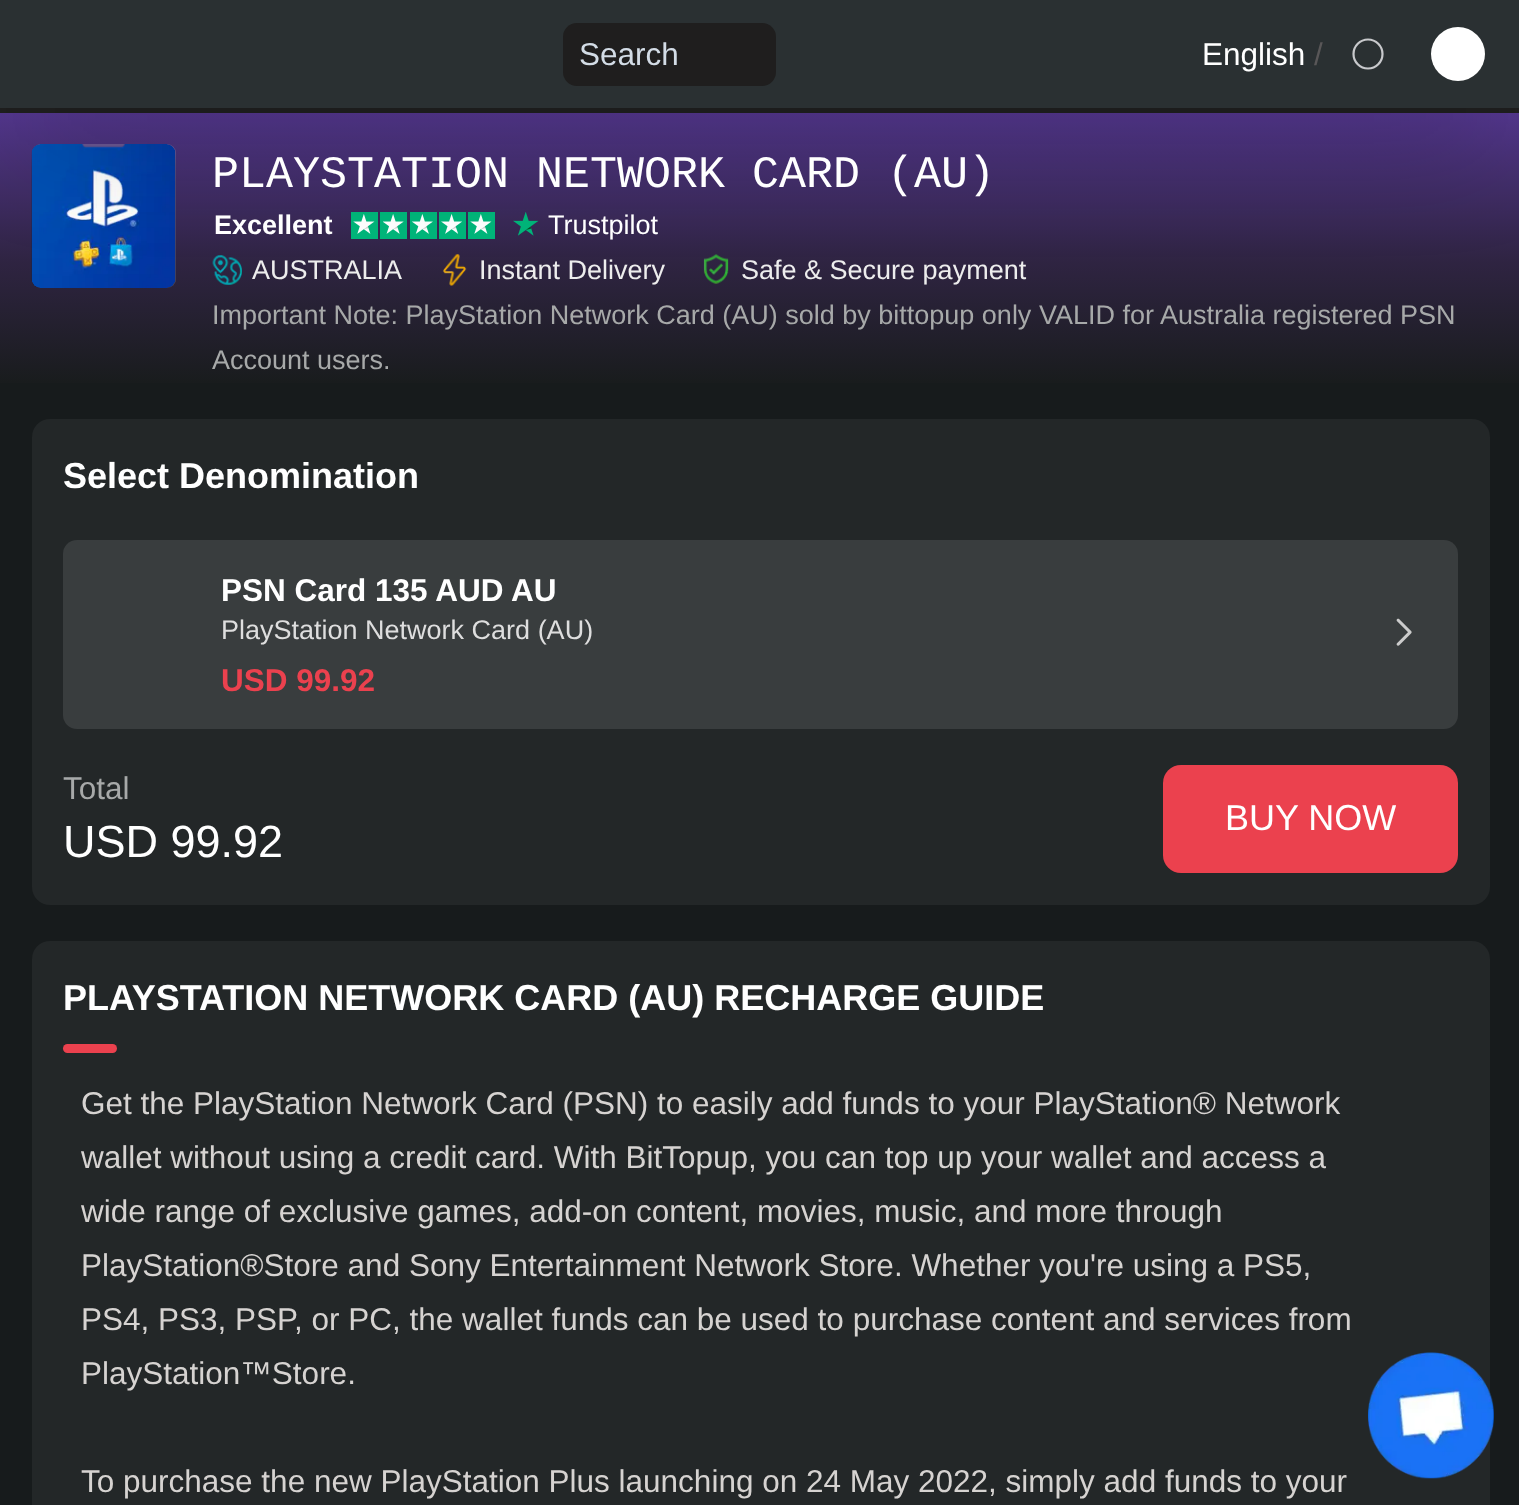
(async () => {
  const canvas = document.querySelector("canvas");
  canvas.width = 1519;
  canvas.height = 1505;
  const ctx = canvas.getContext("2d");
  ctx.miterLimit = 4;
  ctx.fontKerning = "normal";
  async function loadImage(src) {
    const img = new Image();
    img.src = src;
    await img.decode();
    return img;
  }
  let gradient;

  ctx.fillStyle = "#1f1f1f";
  ctx.fillRect(0, 0, 1519, 1505);
  ctx.fillStyle = "#171b1c";
  ctx.fillRect(0, 383, 1519, 1122);
  gradient = ctx.createLinearGradient(761, 112, 761, 383);
  gradient.addColorStop(0, "#54378f");
  gradient.addColorStop(0.55, "#2f2442");
  gradient.addColorStop(1, "#191c1d");
  ctx.fillStyle = gradient;
  ctx.fillRect(0, 113, 1519, 270);
  ctx.fillStyle = "rgba(255, 255, 255, 0.2)";
  ctx.beginPath();
  ctx.roundRect(32, 144, 144, 144, 9);
  ctx.fill();
  ctx.drawImage(await loadImage("img/1.png"), 31, 144, 145, 144);
  ctx.fillStyle = "#00b67a";
  ctx.fillRect(351, 212, 27, 27);
  ctx.drawImage(await loadImage("img/2.png"), 353, 214, 22, 20);
  ctx.fillRect(380, 212, 27, 27);
  ctx.drawImage(await loadImage("img/3.png"), 383, 214, 21, 20);
  ctx.fillRect(410, 212, 27, 27);
  ctx.drawImage(await loadImage("img/4.png"), 412, 214, 21, 20);
  ctx.fillRect(439, 212, 27, 27);
  ctx.drawImage(await loadImage("img/5.png"), 441, 214, 21, 20);
  ctx.fillRect(468, 212, 27, 27);
  ctx.drawImage(await loadImage("img/2.png"), 470, 214, 22, 20);
  ctx.drawImage(await loadImage("img/6.png"), 513, 212, 26, 24);
  ctx.drawImage(await loadImage("img/7.png"), 212, 255, 30, 30);
  ctx.drawImage(await loadImage("img/8.png"), 442, 254, 25, 32);
  ctx.drawImage(await loadImage("img/9.png"), 703, 254, 26, 30);
  ctx.fillStyle = "rgba(0, 0, 0, 0.25)";
  ctx.filter = "blur(56px)";
  ctx.beginPath();
  ctx.rect(27, 83, 1467, 54);
  ctx.fill();
  ctx.filter = "none";
  ctx.fillStyle = "#2a3032";
  ctx.fillRect(0, 0, 1519, 108);
  ctx.fillStyle = "#1f1e1e";
  ctx.beginPath();
  ctx.roundRect(563, 23, 213, 63, 14);
  ctx.fill();
  ctx.beginPath();
  ctx.arc(1368, 54, 14.5, 0, Math.PI * 2);
  ctx.strokeStyle = "#c8c9cc";
  ctx.lineWidth = 2.2;
  ctx.stroke();
  ctx.fillStyle = "#ffffff";
  ctx.beginPath();
  ctx.arc(1458, 54, 27, 0, Math.PI * 2);
  ctx.fill();
  ctx.fillStyle = "#232728";
  ctx.beginPath();
  ctx.roundRect(32, 419, 1458, 486, 18);
  ctx.fill();
  ctx.fillStyle = "#393d3e";
  ctx.beginPath();
  ctx.roundRect(63, 540, 1395, 189, 14);
  ctx.fill();
  ctx.drawImage(await loadImage("img/10.png"), 1396, 618, 16, 28);
  ctx.fillStyle = "#eb414e";
  ctx.beginPath();
  ctx.roundRect(1163, 765, 295, 108, 18);
  ctx.fill();
  ctx.fillStyle = "#232728";
  ctx.beginPath();
  ctx.roundRect(32, 941, 1458, 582, 18);
  ctx.fill();
  ctx.fillStyle = "#eb414e";
  ctx.beginPath();
  ctx.roundRect(63, 1044, 54, 9, 4.5);
  ctx.fill();
  ctx.drawImage(await loadImage("img/11.png"), 1368, 1352, 126, 127);
  ctx.font = "31.5px Liberation Sans";
  ctx.fillStyle = "#d3dce6";
  ctx.fillText("Search", 579, 65);
  ctx.fillStyle = "#ffffff";
  ctx.fillText("English", 1202, 65);
  ctx.fillStyle = "#595758";
  ctx.fillText("/", 1314, 65);
  ctx.font = "45px Liberation Mono";
  ctx.fillStyle = "#ffffff";
  ctx.fillText("PLAYSTATION NETWORK CARD (AU)", 212, 187);
  ctx.font = "bold 27px Liberation Sans";
  ctx.fillText("Excellent", 214, 234);
  ctx.font = "27px Liberation Sans";
  ctx.fillText("Trustpilot", 548, 234);
  ctx.fillStyle = "#ededed";
  for (const [text, x, y] of [
    ["AUSTRALIA", 252, 279],
    ["Instant Delivery", 479, 279],
    ["Safe & Secure payment", 741, 279],
  ]) {
    ctx.fillText(text, x, y);
  }
  ctx.fillStyle = "#a7a9a9";
  ctx.fillText("Important Note: PlayStation Network Card (AU) sold by bittopup only VALID for Australia registered PSN", 212, 324);
  ctx.fillText("Account users.", 212, 369);
  ctx.font = "bold 36px Liberation Sans";
  ctx.fillStyle = "#ffffff";
  ctx.fillText("Select Denomination", 63, 488);
  ctx.font = "bold 31.5px Liberation Sans";
  ctx.fillText("PSN Card 135 AUD AU", 221, 601);
  ctx.font = "27px Liberation Sans";
  ctx.fillStyle = "#dedede";
  ctx.fillText("PlayStation Network Card (AU)", 221, 639);
  ctx.font = "bold 31.5px Liberation Sans";
  ctx.fillStyle = "#eb414e";
  ctx.fillText("USD 99.92", 221, 691);
  ctx.font = "31.5px Liberation Sans";
  ctx.fillStyle = "#a7a9a9";
  ctx.fillText("Total", 63, 799);
  ctx.font = "45px Liberation Sans";
  ctx.fillStyle = "#ffffff";
  ctx.fillText("USD 99.92", 63, 857);
  ctx.font = "36px Liberation Sans";
  ctx.fillText("BUY NOW", 1225, 830);
  ctx.font = "bold 36px Liberation Sans";
  ctx.fillText("PLAYSTATION NETWORK CARD (AU) RECHARGE GUIDE", 63, 1010);
  ctx.font = "31.5px Liberation Sans";
  ctx.fillStyle = "#d6d3d1";
  for (const [text, x, y] of [
    ["Get the PlayStation Network Card (PSN) to easily add funds to your PlayStation® Network", 81, 1114],
    ["wallet without using a credit card. With BitTopup, you can top up your wallet and access a", 81, 1168],
    ["wide range of exclusive games, add-on content, movies, music, and more through", 81, 1222],
    ["PlayStation®Store and Sony Entertainment Network Store. Whether you're using a PS5,", 81, 1276],
    ["PS4, PS3, PSP, or PC, the wallet funds can be used to purchase content and services from", 81, 1330],
    ["PlayStation™Store.", 81, 1384],
    ["To purchase the new PlayStation Plus launching on 24 May 2022, simply add funds to your", 81, 1492],
  ]) {
    ctx.fillText(text, x, y);
  }
})();
